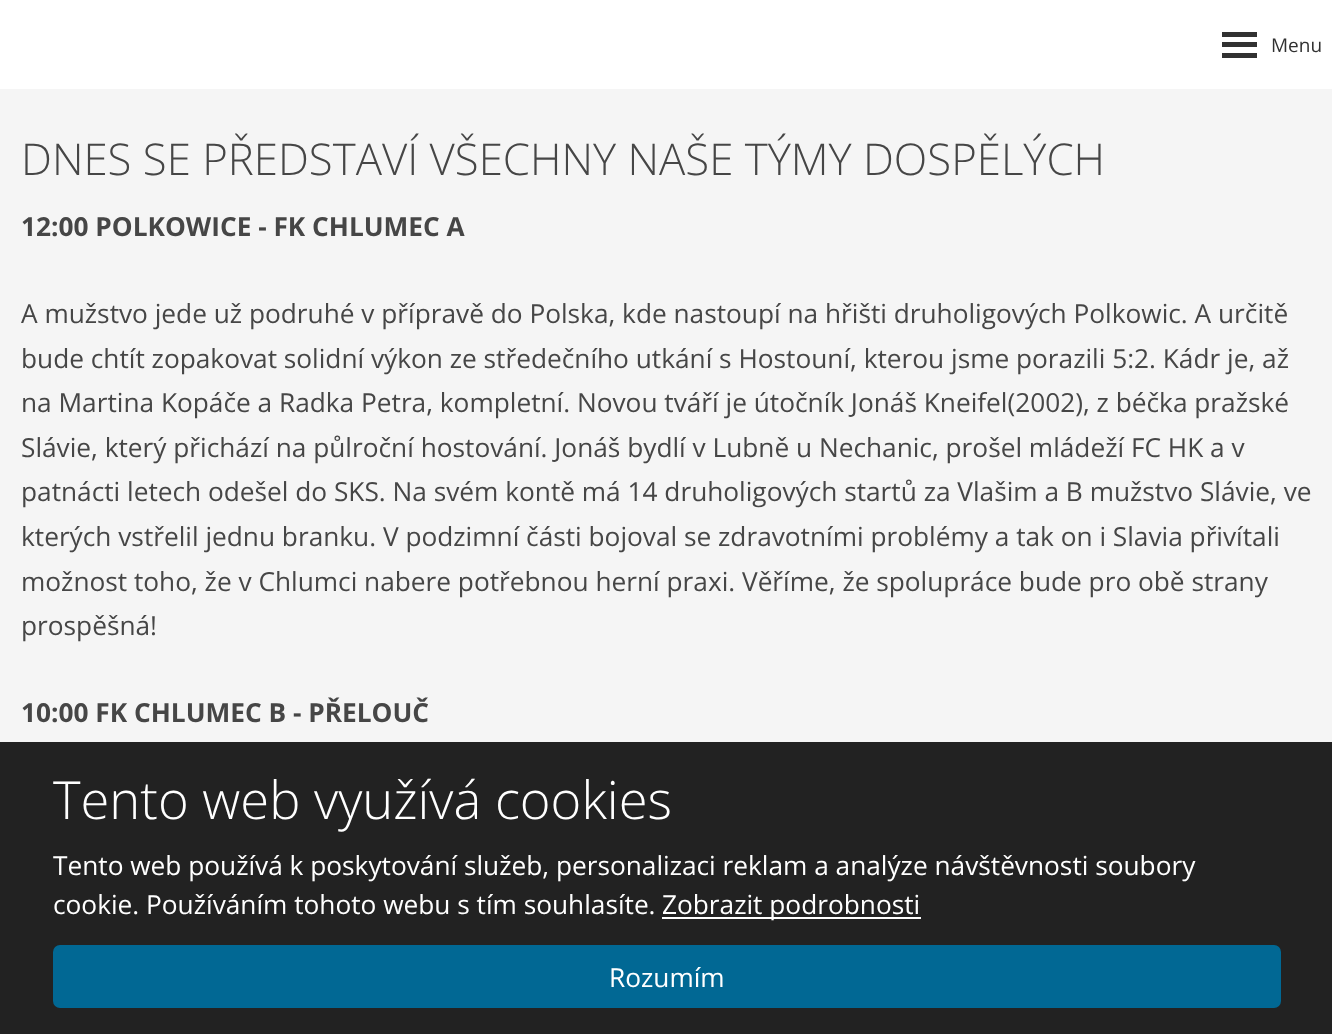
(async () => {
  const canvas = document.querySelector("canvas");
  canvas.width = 1332;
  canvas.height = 1034;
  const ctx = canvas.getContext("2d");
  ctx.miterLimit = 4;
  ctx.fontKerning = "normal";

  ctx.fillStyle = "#ffffff";
  ctx.fillRect(0, 0, 1332, 1034);
  for (const [x, y, w, h, color] of [
    [1222, 32, 35, 5, "#313131"],
    [1222, 42, 35, 5, "#313131"],
    [1222, 53, 35, 5, "#313131"],
    [0, 89, 1332, 653, "#f5f5f5"],
    [0, 742, 1332, 292, "#222222"],
    [662, 917, 259, 2, "#ffffff"],
  ]) {
    ctx.fillStyle = color;
    ctx.fillRect(x, y, w, h);
  }
  ctx.fillStyle = "#016894";
  ctx.beginPath();
  ctx.roundRect(53, 945, 1228, 63, 7);
  ctx.fill();
  ctx.font = "19px Open Sans";
  ctx.fillStyle = "#313131";
  ctx.fillText("Menu", 1271, 52);
  ctx.font = "300 43.75px Open Sans";
  ctx.fillStyle = "#464646";
  ctx.fillText("DNES SE PŘEDSTAVÍ VŠECHNY NAŠE TÝMY DOSPĚLÝCH", 21, 175);
  ctx.font = "bold 26.25px Open Sans";
  ctx.fillText("12:00 POLKOWICE - FK CHLUMEC A", 21, 236);
  ctx.font = "26.25px Open Sans";
  for (const [text, x, y] of [
    ["A mužstvo jede už podruhé v přípravě do Polska, kde nastoupí na hřišti druholigových Polkowic. A určitě", 21, 323],
    ["bude chtít zopakovat solidní výkon ze středečního utkání s Hostouní, kterou jsme porazili 5:2. Kádr je, až", 21, 368],
    ["na Martina Kopáče a Radka Petra, kompletní. Novou tváří je útočník Jonáš Kneifel(2002), z béčka pražské", 21, 412],
    ["Slávie, který přichází na půlroční hostování. Jonáš bydlí v Lubně u Nechanic, prošel mládeží FC HK a v", 21, 457],
    ["patnácti letech odešel do SKS. Na svém kontě má 14 druholigových startů za Vlašim a B mužstvo Slávie, ve", 21, 501],
    ["kterých vstřelil jednu branku. V podzimní části bojoval se zdravotními problémy a tak on i Slavia přivítali", 21, 546],
    ["možnost toho, že v Chlumci nabere potřebnou herní praxi. Věříme, že spolupráce bude pro obě strany", 21, 591],
    ["prospěšná!", 21, 635],
  ]) {
    ctx.fillText(text, x, y);
  }
  ctx.font = "bold 26.25px Open Sans";
  ctx.fillText("10:00 FK CHLUMEC B - PŘELOUČ", 21, 722);
  ctx.font = "300 52.5px Open Sans";
  ctx.fillStyle = "#ffffff";
  ctx.fillText("Tento web využívá cookies", 53, 819);
  ctx.font = "26.25px Open Sans";
  for (const [text, x, y] of [
    ["Tento web používá k poskytování služeb, personalizaci reklam a analýze návštěvnosti soubory", 53, 875],
    ["cookie. Používáním tohoto webu s tím souhlasíte.", 53, 914],
    ["Zobrazit podrobnosti", 662, 914],
    ["Rozumím", 609, 987],
  ]) {
    ctx.fillText(text, x, y);
  }
})();
